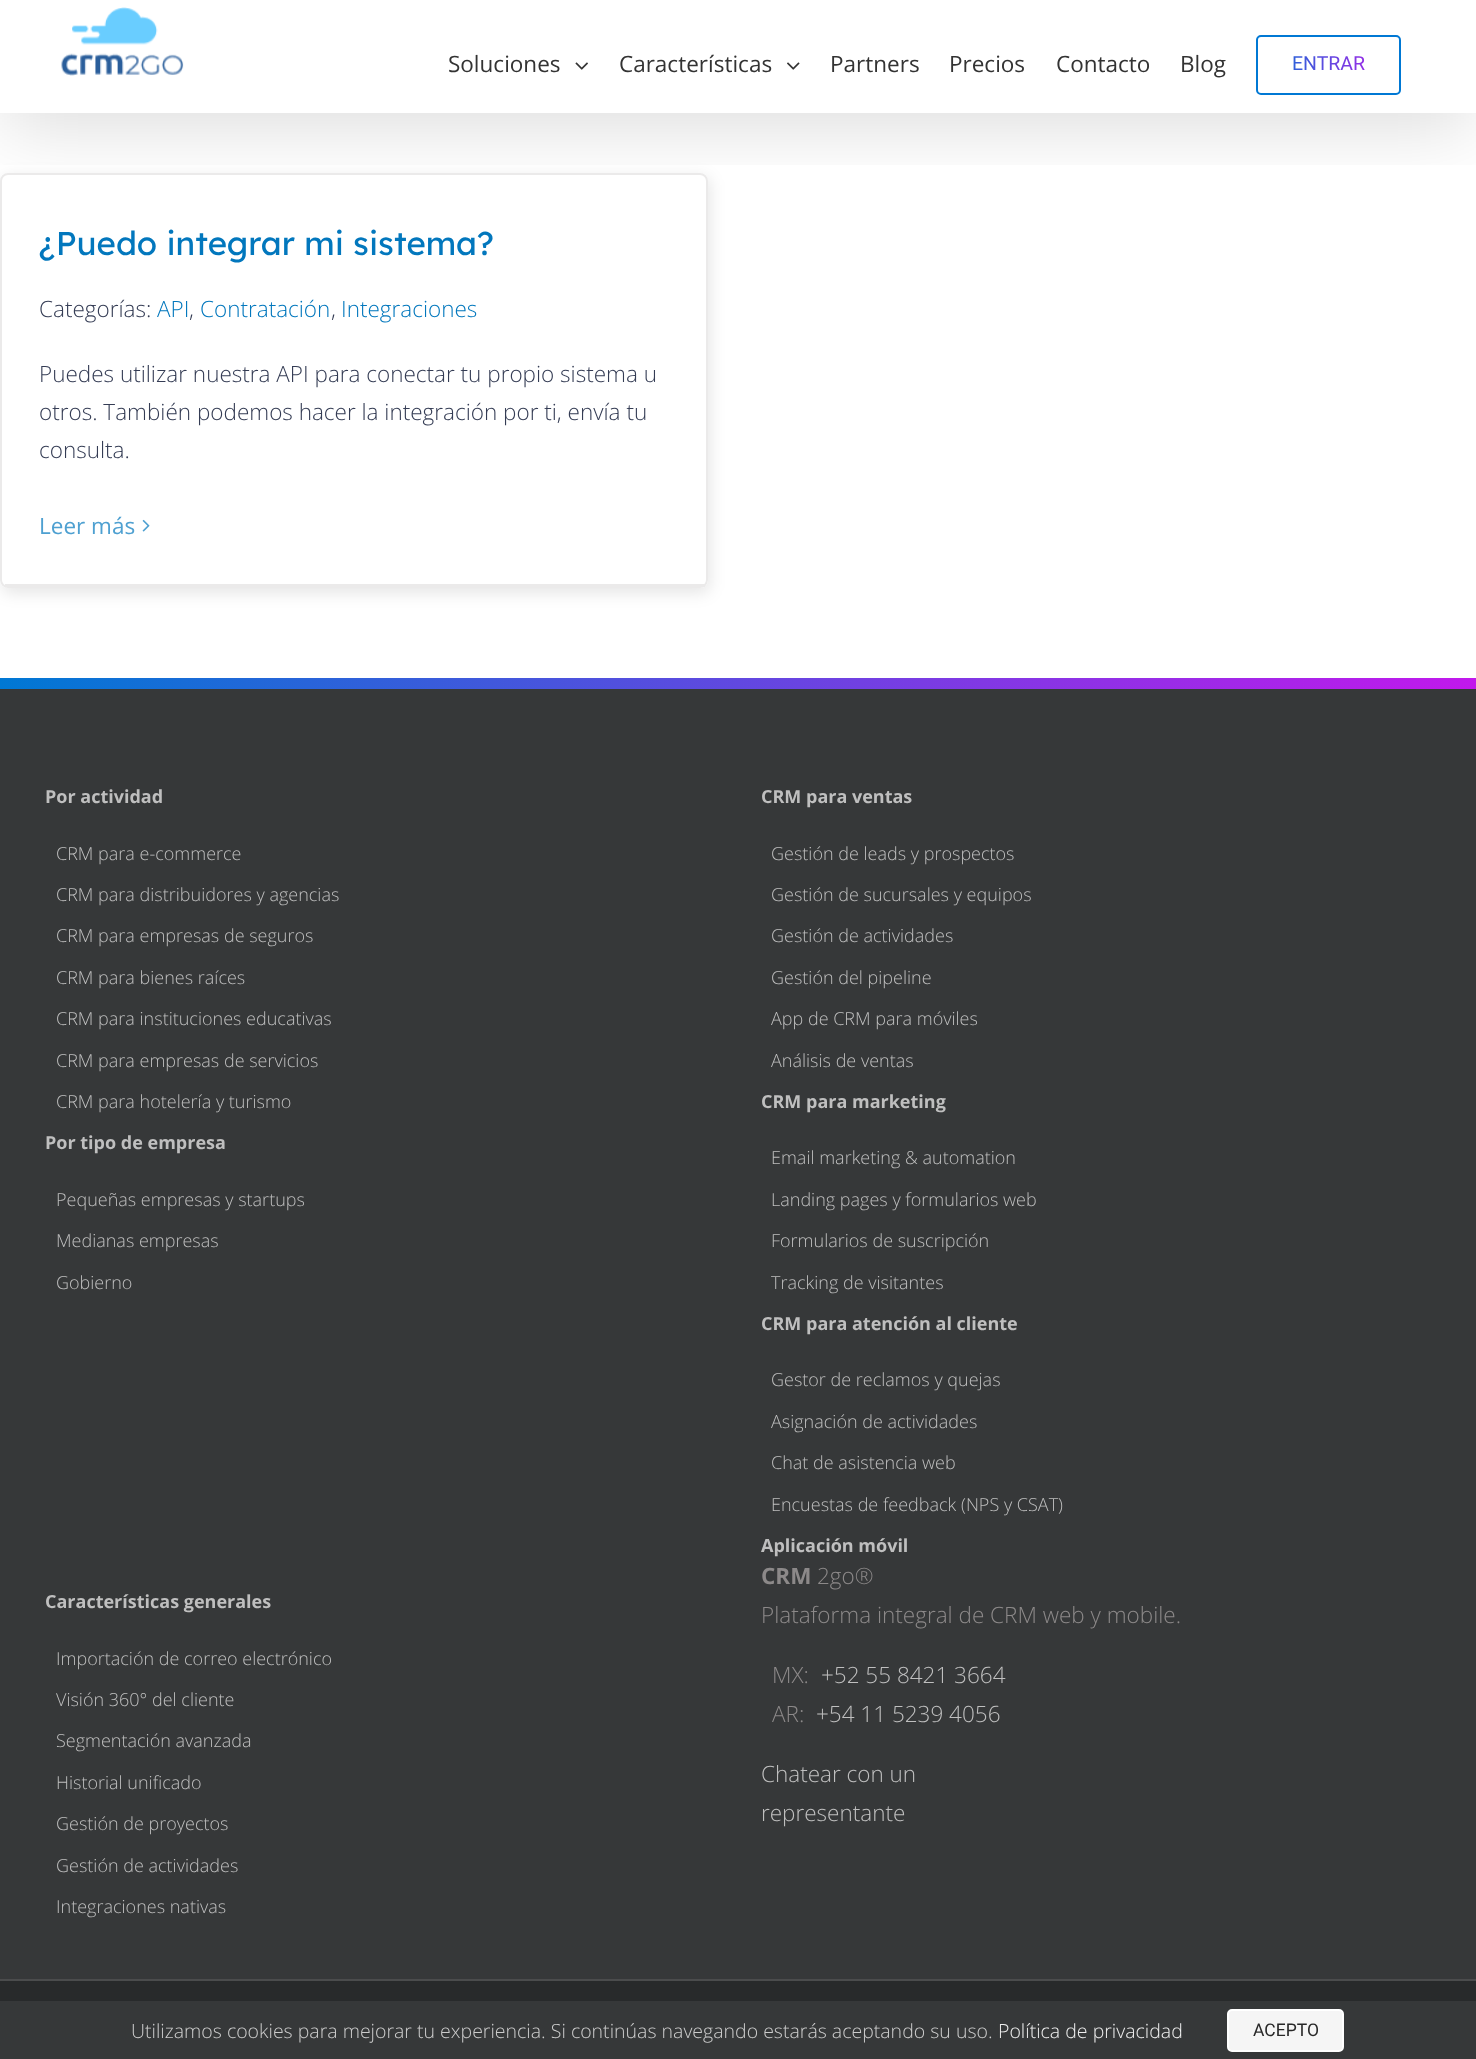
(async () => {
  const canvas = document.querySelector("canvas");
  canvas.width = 1476;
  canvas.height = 2059;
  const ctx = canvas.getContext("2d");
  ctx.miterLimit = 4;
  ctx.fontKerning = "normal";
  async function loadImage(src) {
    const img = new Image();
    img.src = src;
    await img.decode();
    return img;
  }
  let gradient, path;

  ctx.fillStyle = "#ffffff";
  ctx.fillRect(0, 0, 1476, 2059);
  ctx.save();
  path = new Path2D("M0 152H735V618H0ZM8 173H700C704.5 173 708 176.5 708 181V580C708 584.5 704.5 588 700 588H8C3.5 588 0 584.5 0 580V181C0 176.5 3.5 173 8 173Z");
  ctx.clip(path, "evenodd");
  ctx.fillStyle = "rgba(0, 0, 0, 0.1)";
  ctx.filter = "blur(8px)";
  ctx.beginPath();
  ctx.roundRect(2, 177, 708, 416, 8);
  ctx.fill();
  ctx.filter = "none";
  ctx.restore();
  ctx.beginPath();
  ctx.roundRect(1, 174, 706, 413, 7);
  ctx.strokeStyle = "#ebeaea";
  ctx.lineWidth = 2;
  ctx.stroke();
  ctx.save();
  ctx.beginPath();
  ctx.rect(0, 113, 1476, 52);
  ctx.clip();
  ctx.fillStyle = "rgba(0, 0, 0, 0.14)";
  ctx.filter = "blur(37.5px)";
  ctx.beginPath();
  ctx.rect(3, 18, 1470, 107);
  ctx.fill();
  ctx.filter = "none";
  ctx.restore();
  ctx.fillRect(0, 112, 1476, 1);
  ctx.drawImage(await loadImage("img/1.png"), 61, 7, 123, 69);
  ctx.drawImage(await loadImage("img/2.png"), 575, 62, 13, 8);
  ctx.drawImage(await loadImage("img/3.png"), 787, 62, 13, 8);
  ctx.beginPath();
  ctx.roundRect(1257, 36, 143, 58, 4);
  ctx.strokeStyle = "#0078d4";
  ctx.stroke();
  ctx.fillStyle = "#ebeaea";
  ctx.fillRect(5, 584, 700, 3);
  ctx.drawImage(await loadImage("img/4.png"), 142, 519, 8, 13);
  gradient = ctx.createLinearGradient(0, 683, 1476, 683);
  gradient.addColorStop(0, "#0078d4");
  gradient.addColorStop(1, "#c218ec");
  ctx.fillStyle = gradient;
  ctx.fillRect(0, 678, 1476, 11);
  for (const [x, y, w, h, color] of [
    [0, 689, 1476, 1290, "#363839"],
    [0, 1981, 1476, 20, "#282a2b"],
    [0, 1979, 1476, 2, "#4b4c4d"],
    [0, 2001, 1476, 58, "#363839"],
  ]) {
    ctx.fillStyle = color;
    ctx.fillRect(x, y, w, h);
  }
  ctx.fillStyle = "#f5f5f5";
  ctx.beginPath();
  ctx.roundRect(1228, 2010, 115, 41, 4);
  ctx.fill();
  ctx.strokeStyle = "#ffffff";
  ctx.stroke();
  ctx.font = "22.5px Open Sans";
  ctx.fillStyle = "#333333";
  for (const [text, x, y] of [
    ["Soluciones", 448, 72],
    ["Características", 619, 72],
    ["Partners", 830, 72],
    ["Precios", 949, 72],
    ["Contacto", 1056, 72],
    ["Blog", 1180, 72],
  ]) {
    ctx.fillText(text, x, y);
  }
  ctx.font = "19.5px Roboto";
  gradient = ctx.createLinearGradient(1256, 64, 1401, 64);
  gradient.addColorStop(0, "#0078d4");
  gradient.addColorStop(1, "#c218ec");
  ctx.fillStyle = gradient;
  ctx.fillText("ENTRAR", 1292, 70);
  ctx.font = "33px Lexend Deca";
  ctx.fillStyle = "#0277bd";
  ctx.fillText("¿Puedo integrar mi sistema?", 39, 255);
  ctx.font = "300 22.5px Open Sans";
  ctx.fillStyle = "#343c54";
  ctx.fillText("Categorías:", 39, 317);
  ctx.fillStyle = "#0277bd";
  ctx.fillText("API", 157, 317);
  ctx.fillStyle = "#343c54";
  ctx.fillText(",", 189, 317);
  ctx.fillStyle = "#0277bd";
  ctx.fillText("Contratación", 200, 317);
  ctx.fillStyle = "#343c54";
  ctx.fillText(",", 331, 317);
  ctx.fillStyle = "#0277bd";
  ctx.fillText("Integraciones", 341, 317);
  ctx.fillStyle = "#343c54";
  for (const [text, x, y] of [
    ["Puedes utilizar nuestra API para conectar tu propio sistema u", 39, 382],
    ["otros. También podemos hacer la integración por ti, envía tu", 39, 420],
    ["consulta.", 39, 458],
  ]) {
    ctx.fillText(text, x, y);
  }
  ctx.font = "22.5px Open Sans";
  ctx.fillStyle = "#4ea0d1";
  ctx.fillText("Leer más", 39, 534);
  ctx.font = "bold 18px Open Sans";
  ctx.fillStyle = "#bfbfbf";
  ctx.fillText("Por actividad", 45, 803);
  ctx.font = "300 18px Open Sans";
  for (const [text, x, y] of [
    ["CRM para e-commerce", 56, 860],
    ["CRM para distribuidores y agencias", 56, 901],
    ["CRM para empresas de seguros", 56, 942],
    ["CRM para bienes raíces", 56, 984],
    ["CRM para instituciones educativas", 56, 1025],
    ["CRM para empresas de servicios", 56, 1067],
    ["CRM para hotelería y turismo", 56, 1108],
  ]) {
    ctx.fillText(text, x, y);
  }
  ctx.font = "bold 18px Open Sans";
  ctx.fillText("Por tipo de empresa", 45, 1149);
  ctx.font = "300 18px Open Sans";
  for (const [text, x, y] of [
    ["Pequeñas empresas y startups", 56, 1206],
    ["Medianas empresas", 56, 1247],
    ["Gobierno", 56, 1289],
  ]) {
    ctx.fillText(text, x, y);
  }
  ctx.font = "bold 18px Open Sans";
  ctx.fillText("CRM para ventas", 761, 803);
  ctx.font = "300 18px Open Sans";
  for (const [text, x, y] of [
    ["Gestión de leads y prospectos", 771, 860],
    ["Gestión de sucursales y equipos", 771, 901],
    ["Gestión de actividades", 771, 942],
    ["Gestión del pipeline", 771, 984],
    ["App de CRM para móviles", 771, 1025],
    ["Análisis de ventas", 771, 1067],
  ]) {
    ctx.fillText(text, x, y);
  }
  ctx.font = "bold 18px Open Sans";
  ctx.fillText("CRM para marketing", 761, 1108);
  ctx.font = "300 18px Open Sans";
  for (const [text, x, y] of [
    ["Email marketing & automation", 771, 1164],
    ["Landing pages y formularios web", 771, 1206],
    ["Formularios de suscripción", 771, 1247],
    ["Tracking de visitantes", 771, 1289],
  ]) {
    ctx.fillText(text, x, y);
  }
  ctx.font = "bold 18px Open Sans";
  ctx.fillText("CRM para atención al cliente", 761, 1330);
  ctx.font = "300 18px Open Sans";
  for (const [text, x, y] of [
    ["Gestor de reclamos y quejas", 771, 1386],
    ["Asignación de actividades", 771, 1428],
    ["Chat de asistencia web", 771, 1469],
    ["Encuestas de feedback (NPS y CSAT)", 771, 1511],
  ]) {
    ctx.fillText(text, x, y);
  }
  ctx.font = "bold 18px Open Sans";
  ctx.fillText("Aplicación móvil", 761, 1552);
  ctx.fillText("Características generales", 45, 1608);
  ctx.font = "300 18px Open Sans";
  for (const [text, x, y] of [
    ["Importación de correo electrónico", 56, 1665],
    ["Visión 360° del cliente", 56, 1706],
    ["Segmentación avanzada", 56, 1747],
    ["Historial unificado", 56, 1789],
    ["Gestión de proyectos", 56, 1830],
    ["Gestión de actividades", 56, 1872],
    ["Integraciones nativas", 56, 1913],
  ]) {
    ctx.fillText(text, x, y);
  }
  ctx.font = "bold 22.5px Open Sans";
  ctx.fillStyle = "#8c8989";
  ctx.fillText("CRM", 761, 1584);
  ctx.font = "300 22.5px Open Sans";
  for (const [text, x, y] of [
    ["2go®", 817, 1584],
    ["Plataforma integral de CRM web y mobile.", 761, 1623],
    ["MX:", 772, 1683],
  ]) {
    ctx.fillText(text, x, y);
  }
  ctx.fillStyle = "#bfbfbf";
  ctx.fillText("+52 55 8421 3664", 821, 1683);
  ctx.fillStyle = "#8c8989";
  ctx.fillText("AR:", 772, 1722);
  ctx.fillStyle = "#bfbfbf";
  for (const [text, x, y] of [
    ["+54 11 5239 4056", 816, 1722],
    ["Chatear con un", 761, 1782],
    ["representante", 761, 1821],
  ]) {
    ctx.fillText(text, x, y);
  }
  ctx.font = "300 19.5px Open Sans";
  ctx.fillStyle = "#cccccc";
  ctx.fillText("Utilizamos cookies para mejorar tu experiencia. Si continúas navegando estarás aceptando su uso.", 131, 2038);
  ctx.fillStyle = "#eeeeee";
  ctx.fillText("Política de privacidad", 998, 2038);
  ctx.font = "17.5px Roboto";
  ctx.fillStyle = "#282828";
  ctx.fillText("ACEPTO", 1253, 2036);
})();
